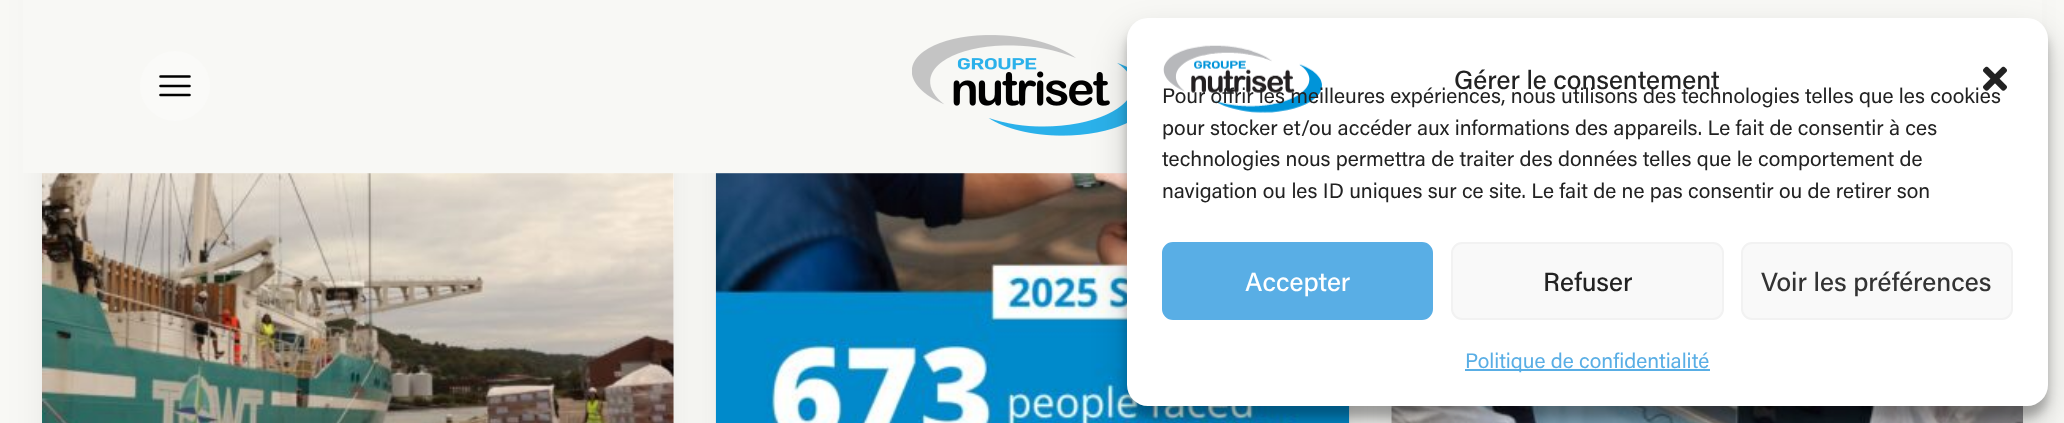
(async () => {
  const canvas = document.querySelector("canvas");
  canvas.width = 2064;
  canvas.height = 423;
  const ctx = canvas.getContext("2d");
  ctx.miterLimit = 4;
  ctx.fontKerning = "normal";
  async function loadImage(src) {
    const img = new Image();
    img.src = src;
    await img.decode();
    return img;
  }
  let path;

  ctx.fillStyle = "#f8f8f5";
  ctx.fillRect(0, 0, 2064, 423);
  ctx.fillStyle = "rgba(0, 0, 0, 0.1)";
  ctx.filter = "blur(22px)";
  ctx.beginPath();
  ctx.roundRect(51, -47, 614, 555, 19);
  ctx.fill();
  ctx.filter = "none";
  ctx.fillStyle = "#ffffff";
  ctx.fillRect(673, 173, 1, 250);
  ctx.drawImage(await loadImage("img/1.png"), 42, 173, 632, 250);
  ctx.fillStyle = "rgba(0, 0, 0, 0.1)";
  ctx.filter = "blur(22px)";
  ctx.beginPath();
  ctx.roundRect(725, -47, 616, 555, 19);
  ctx.fill();
  ctx.filter = "none";
  ctx.drawImage(await loadImage("img/2.png"), 715, 173, 635, 250);
  ctx.filter = "blur(22px)";
  ctx.beginPath();
  ctx.roundRect(1400, -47, 614, 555, 19);
  ctx.fill();
  ctx.filter = "none";
  ctx.fillStyle = "#ffffff";
  ctx.fillRect(1391, 406, 1, 17);
  ctx.drawImage(await loadImage("img/3.png"), 1391, 406, 632, 17);
  ctx.fillStyle = "#f8f8f5";
  ctx.fillRect(23, 0, 2019, 173);
  ctx.fillStyle = "rgba(248, 248, 245, 0.2)";
  ctx.fillRect(42, 173, 1970, 1);
  ctx.fillStyle = "#fafaf8";
  ctx.beginPath();
  ctx.arc(175, 86, 35, 0, Math.PI * 2);
  ctx.fill();
  path = new Path2D("M160.5 76.5H189.5M160.5 86H189.5M160.5 95H189.5");
  ctx.strokeStyle = "#000000";
  ctx.lineWidth = 2.6;
  ctx.lineCap = "round";
  ctx.lineJoin = "round";
  ctx.stroke(path);
  ctx.drawImage(await loadImage("img/4.png"), 912, 35, 215, 101);
  ctx.fillStyle = "rgba(0, 0, 0, 0.23)";
  ctx.filter = "blur(5px)";
  ctx.beginPath();
  ctx.roundRect(1127, 28, 921, 389, 21);
  ctx.fill();
  ctx.filter = "none";
  ctx.fillStyle = "rgba(0, 0, 0, 0.19)";
  ctx.filter = "blur(17.5px)";
  ctx.beginPath();
  ctx.roundRect(1127, 35, 921, 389, 21);
  ctx.fill();
  ctx.filter = "none";
  ctx.fillStyle = "#ffffff";
  ctx.beginPath();
  ctx.roundRect(1127, 18, 921, 388, 21);
  ctx.fill();
  ctx.drawImage(await loadImage("img/5.png"), 1163, 45, 159, 68);
  ctx.drawImage(await loadImage("img/6.png"), 1983, 66, 24, 25);
  ctx.fillStyle = "#59aee5";
  ctx.beginPath();
  ctx.roundRect(1163, 243, 269, 76, 10);
  ctx.fill();
  ctx.strokeStyle = "#59aee5";
  ctx.lineWidth = 2;
  ctx.lineJoin = "miter";
  ctx.stroke();
  ctx.fillStyle = "#f9f9f9";
  ctx.beginPath();
  ctx.roundRect(1452, 243, 271, 76, 10);
  ctx.fill();
  ctx.strokeStyle = "#f2f2f2";
  ctx.stroke();
  ctx.beginPath();
  ctx.roundRect(1742, 243, 270, 76, 10);
  ctx.fill();
  ctx.stroke();
  ctx.fillStyle = "#59aee5";
  ctx.fillRect(1465, 369, 245, 2);
  ctx.font = "500 26.25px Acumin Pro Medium";
  ctx.fillStyle = "#222222";
  ctx.fillText("Gérer le consentement", 1454, 89);
  ctx.font = "21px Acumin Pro";
  for (const [text, x, y] of [
    ["Pour offrir les meilleures expériences, nous utilisons des technologies telles que les cookies", 1162, 103],
    ["pour stocker et/ou accéder aux informations des appareils. Le fait de consentir à ces", 1162, 135],
    ["technologies nous permettra de traiter des données telles que le comportement de", 1162, 166],
    ["navigation ou les ID uniques sur ce site. Le fait de ne pas consentir ou de retirer son", 1162, 198],
  ]) {
    ctx.fillText(text, x, y);
  }
  ctx.font = "500 26.25px Acumin Pro Medium";
  ctx.fillStyle = "#ffffff";
  ctx.fillText("Accepter", 1245, 291);
  ctx.fillStyle = "#222222";
  ctx.fillText("Refuser", 1543, 291);
  ctx.fillStyle = "#333333";
  ctx.fillText("Voir les préférences", 1761, 291);
  ctx.font = "21px Acumin Pro";
  ctx.fillStyle = "#59aee5";
  ctx.fillText("Politique de confidentialité", 1465, 368);
})();
